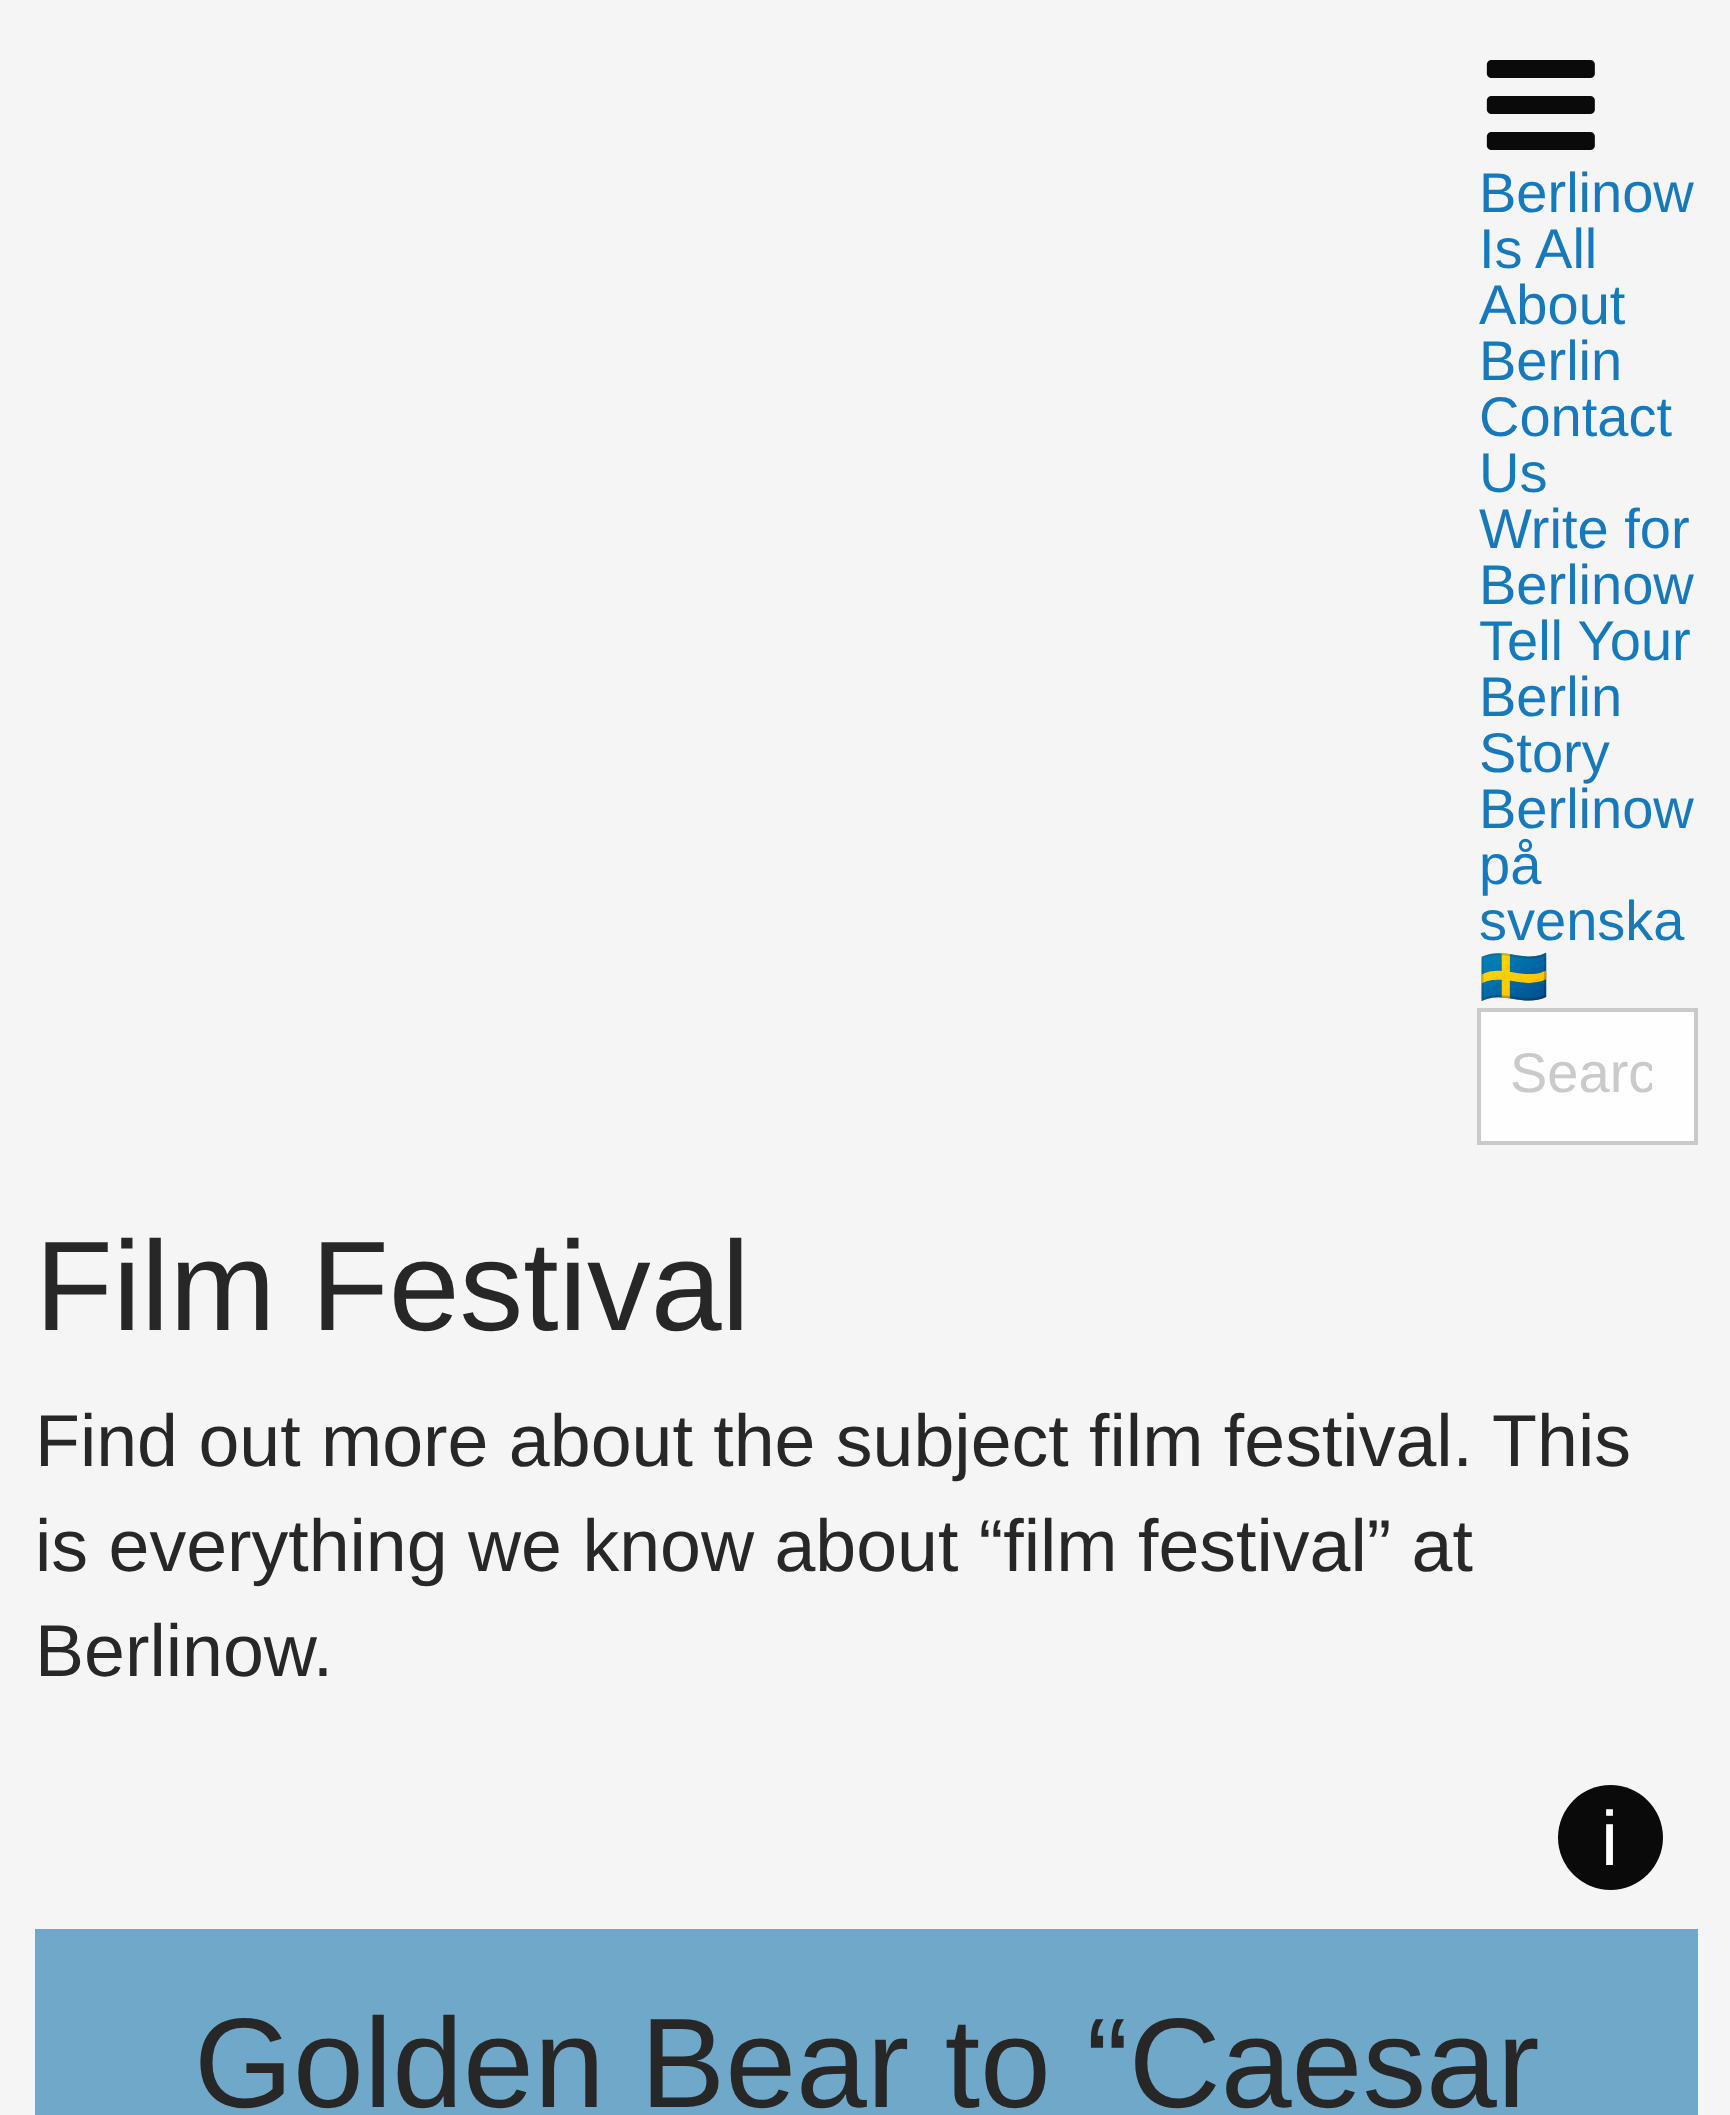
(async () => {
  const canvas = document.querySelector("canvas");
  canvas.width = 1730;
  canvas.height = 2115;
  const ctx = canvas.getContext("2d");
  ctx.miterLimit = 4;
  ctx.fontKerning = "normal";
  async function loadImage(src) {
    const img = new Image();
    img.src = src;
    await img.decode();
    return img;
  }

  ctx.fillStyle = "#f5f5f5";
  ctx.fillRect(0, 0, 1730, 2115);
  ctx.drawImage(await loadImage("img/1.png"), 1486, 60, 109, 90);
  ctx.fillStyle = "#fefefe";
  ctx.beginPath();
  ctx.rect(1479, 1010, 217, 133);
  ctx.fill();
  ctx.strokeStyle = "#cacaca";
  ctx.lineWidth = 4;
  ctx.stroke();
  ctx.fillStyle = "#0a0a0a";
  ctx.beginPath();
  ctx.arc(1610.5, 1837.5, 52.5, 0, Math.PI * 2);
  ctx.fill();
  ctx.fillStyle = "#6fa8c9";
  ctx.fillRect(35, 1929, 1663, 186);
  ctx.font = "56px Liberation Sans";
  ctx.fillStyle = "#1779ba";
  for (const [text, x, y] of [
    ["Berlinow", 1479, 212],
    ["Is All", 1479, 268],
    ["About", 1479, 324],
    ["Berlin", 1479, 380],
    ["Contact", 1479, 436],
    ["Us", 1479, 492],
    ["Write for", 1479, 548],
    ["Berlinow", 1479, 604],
    ["Tell Your", 1479, 660],
    ["Berlin", 1479, 716],
    ["Story", 1479, 772],
    ["Berlinow", 1479, 828],
    ["på", 1479, 884],
    ["svenska", 1479, 940],
  ]) {
    ctx.fillText(text, x, y);
  }
  ctx.font = "56px Noto Color Emoji";
  ctx.fillText("🇸🇪", 1479, 996);
  ctx.save();
  ctx.beginPath();
  ctx.rect(1509, 1043, 143, 63);
  ctx.clip();
  ctx.font = "56px Liberation Sans";
  ctx.fillStyle = "#cacaca";
  ctx.fillText("Searc", 1510, 1092);
  ctx.restore();
  ctx.font = "127.4px Liberation Sans";
  ctx.fillStyle = "#272727";
  ctx.fillText("Film Festival", 35, 1330);
  ctx.font = "73.5px Liberation Sans";
  for (const [text, x, y] of [
    ["Find out more about the subject film festival. This", 35, 1466],
    ["is everything we know about “film festival” at", 35, 1571],
    ["Berlinow.", 35, 1676],
  ]) {
    ctx.fillText(text, x, y);
  }
  ctx.font = "77px Liberation Sans";
  ctx.fillStyle = "#fefefe";
  ctx.fillText("i", 1601, 1865);
  ctx.font = "127.4px Liberation Sans";
  ctx.fillStyle = "#272727";
  ctx.fillText("Golden Bear to “Caesar", 194, 2107);
})();
